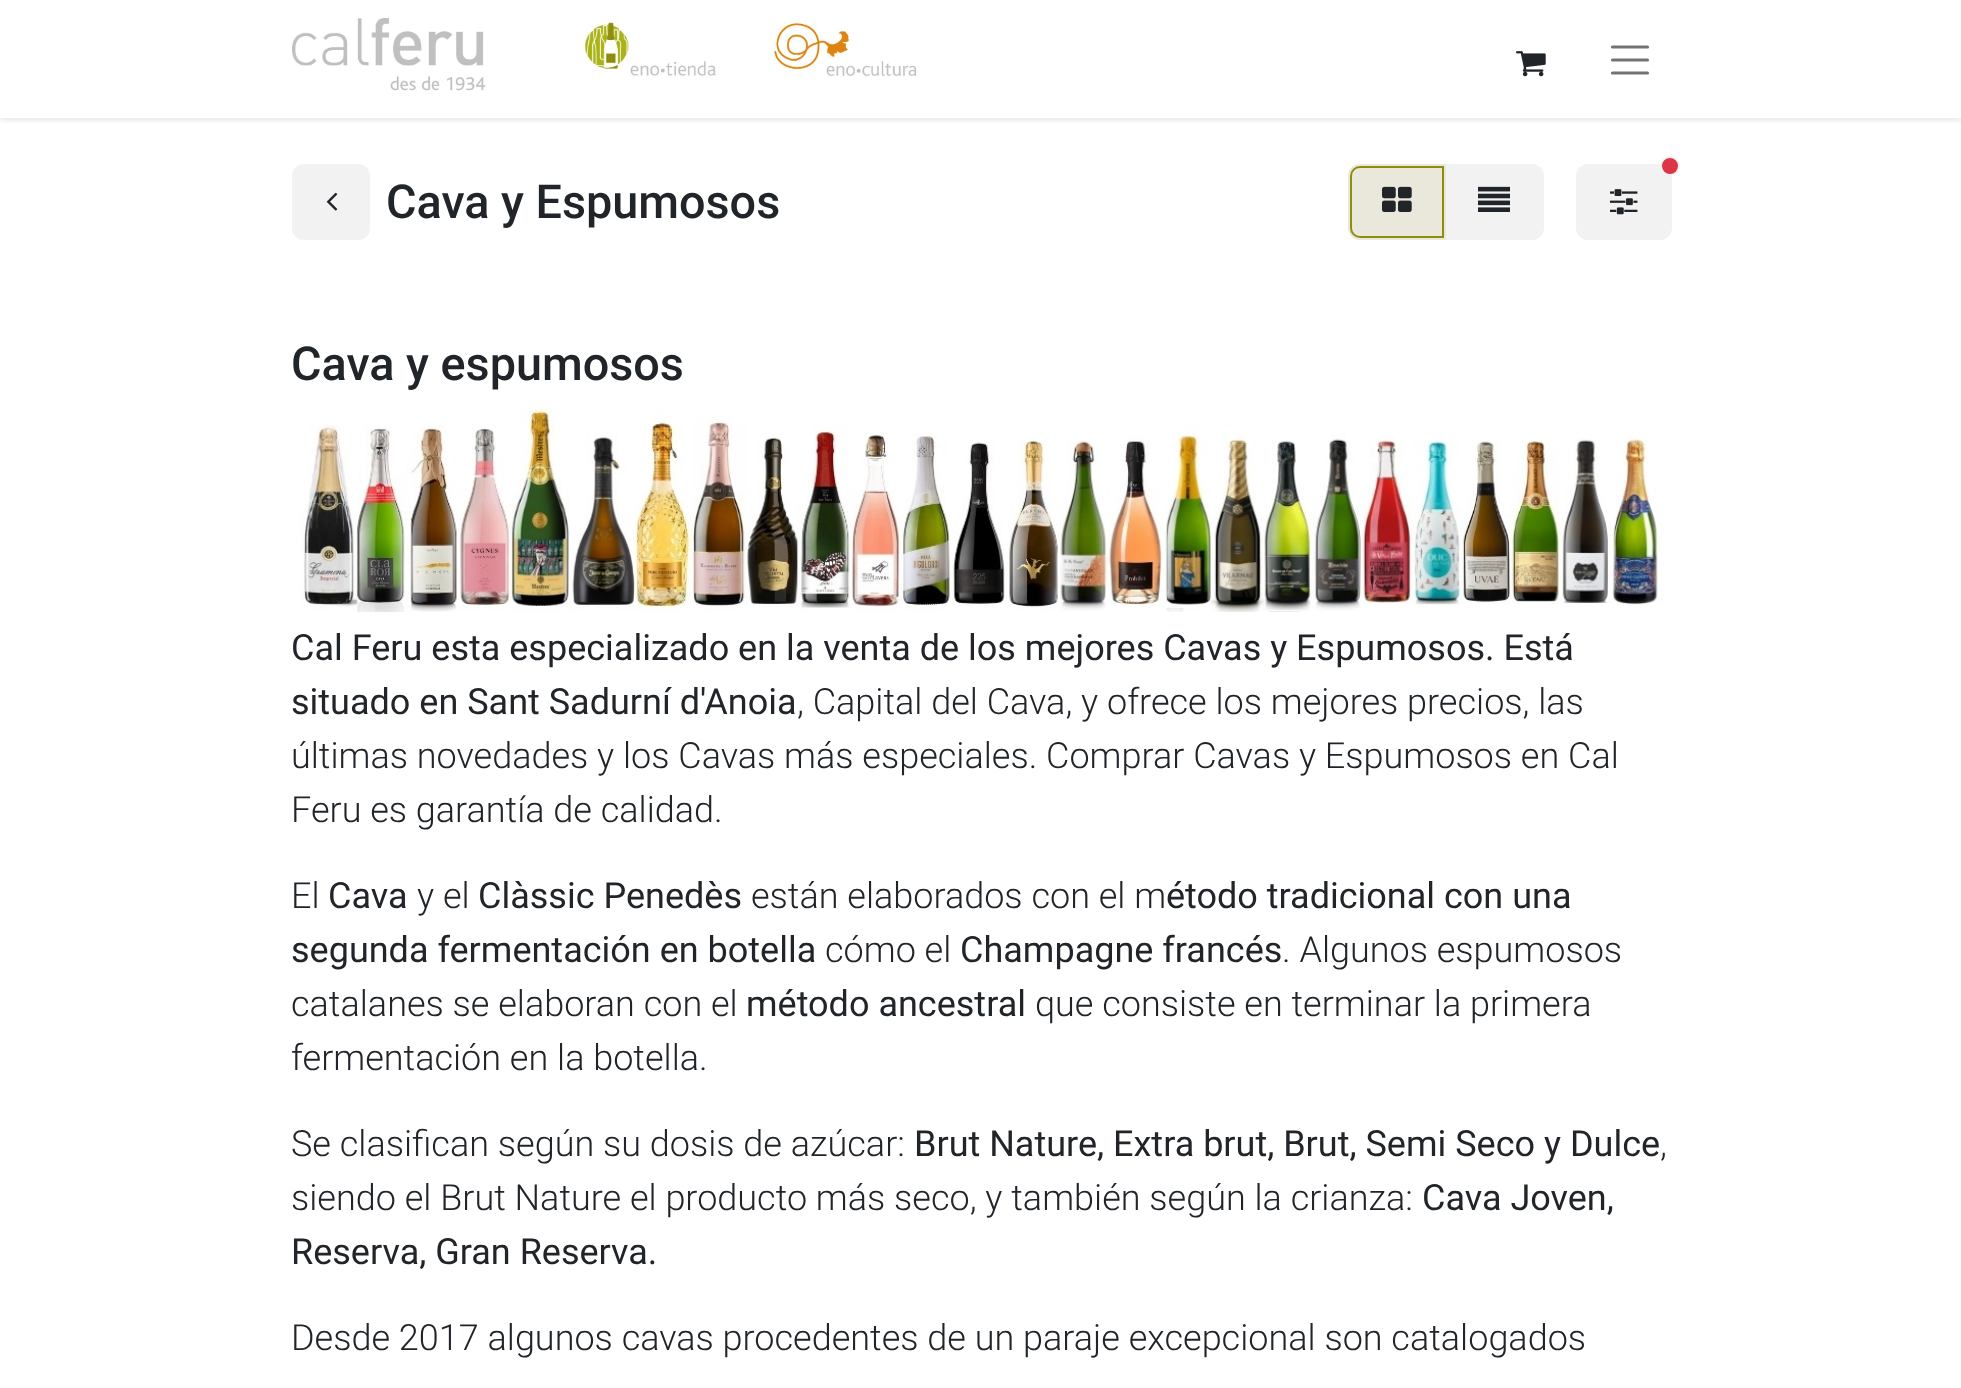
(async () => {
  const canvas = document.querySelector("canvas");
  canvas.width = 1961;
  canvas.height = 1388;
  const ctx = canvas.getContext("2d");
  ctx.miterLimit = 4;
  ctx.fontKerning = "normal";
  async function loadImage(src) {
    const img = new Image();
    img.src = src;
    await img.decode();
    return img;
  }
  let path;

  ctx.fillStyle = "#ffffff";
  ctx.fillRect(0, 0, 1961, 1388);
  ctx.save();
  ctx.beginPath();
  ctx.rect(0, 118, 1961, 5);
  ctx.clip();
  ctx.fillStyle = "rgba(0, 0, 0, 0.1)";
  ctx.filter = "blur(3px)";
  ctx.beginPath();
  ctx.rect(0, 2, 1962, 118);
  ctx.fill();
  ctx.filter = "none";
  ctx.restore();
  ctx.drawImage(await loadImage("img/1.png"), 292, 18, 625, 73);
  ctx.drawImage(await loadImage("img/2.png"), 1516, 51, 30, 26);
  path = new Path2D("M1612.5 47H1647.5M1612.5 60H1647.5M1612.5 73H1647.5");
  ctx.strokeStyle = "#737373";
  ctx.lineWidth = 3.2;
  ctx.lineCap = "round";
  ctx.stroke(path);
  ctx.fillStyle = "#f3f2f2";
  ctx.beginPath();
  ctx.roundRect(293, 165, 76, 74, 11);
  ctx.fill();
  ctx.strokeStyle = "#f3f2f2";
  ctx.lineWidth = 2;
  ctx.stroke();
  ctx.drawImage(await loadImage("img/3.png"), 326, 192, 12, 19);
  ctx.beginPath();
  ctx.roundRect(1445, 165, 98, 74, [0, 11, 11, 0]);
  ctx.fill();
  ctx.stroke();
  ctx.fillStyle = "#e9e8db";
  ctx.beginPath();
  ctx.roundRect(1348, 164, 98, 76, [12, 0, 0, 12]);
  ctx.fill();
  ctx.beginPath();
  ctx.roundRect(1351, 167, 92, 70, [9, 0, 0, 9]);
  ctx.strokeStyle = "#8e8e0c";
  ctx.stroke();
  ctx.drawImage(await loadImage("img/4.png"), 1382, 186, 30, 26);
  ctx.drawImage(await loadImage("img/5.png"), 1478, 186, 32, 26);
  ctx.fillStyle = "#f3f2f2";
  ctx.beginPath();
  ctx.roundRect(1577, 165, 94, 74, 11);
  ctx.fill();
  ctx.strokeStyle = "#f3f2f2";
  ctx.stroke();
  ctx.fillStyle = "#dc3545";
  ctx.beginPath();
  ctx.arc(1670, 166, 9, 0, Math.PI * 2);
  ctx.fill();
  ctx.stroke();
  ctx.drawImage(await loadImage("img/6.png"), 1610, 189, 28, 26);
  ctx.drawImage(await loadImage("img/7.png"), 300, 408, 1366, 204);
  ctx.font = "500 46.75px Roboto";
  ctx.fillStyle = "#212529";
  ctx.fillText("Cava y Espumosos", 386, 218);
  ctx.fillText("Cava y espumosos", 291, 380);
  ctx.font = "36px Roboto";
  ctx.fillText("Cal Feru esta especializado en la venta de los mejores Cavas y Espumosos. Está", 291, 660);
  ctx.fillText("situado en Sant Sadurní d'Anoia", 291, 714);
  ctx.font = "300 36px Roboto";
  for (const [text, x, y] of [
    [", Capital del Cava, y ofrece los mejores precios, las", 797, 714],
    ["últimas novedades y los Cavas más especiales. Comprar Cavas y Espumosos en Cal", 291, 768],
    ["Feru es garantía de calidad.", 291, 822],
    ["El", 291, 908],
  ]) {
    ctx.fillText(text, x, y);
  }
  ctx.font = "36px Roboto";
  ctx.fillText("Cava", 328, 908);
  ctx.font = "300 36px Roboto";
  ctx.fillText("y el", 417, 908);
  ctx.font = "36px Roboto";
  ctx.fillText("Clàssic Penedès", 478, 908);
  ctx.font = "300 36px Roboto";
  ctx.fillText("están elaborados con el m", 751, 908);
  ctx.font = "36px Roboto";
  ctx.fillText("étodo tradicional con una", 1166, 908);
  ctx.fillText("segunda fermentación en botella", 291, 962);
  ctx.font = "300 36px Roboto";
  ctx.fillText("cómo el", 825, 962);
  ctx.font = "36px Roboto";
  ctx.fillText("Champagne francés", 960, 962);
  ctx.font = "300 36px Roboto";
  ctx.fillText(". Algunos espumosos", 1282, 962);
  ctx.fillText("catalanes se elaboran con el", 291, 1016);
  ctx.font = "36px Roboto";
  ctx.fillText("método ancestral", 746, 1016);
  ctx.font = "300 36px Roboto";
  for (const [text, x, y] of [
    ["que consiste en terminar la primera", 1035, 1016],
    ["fermentación en la botella.", 291, 1070],
    ["Se clasifican según su dosis de azúcar:", 291, 1156],
  ]) {
    ctx.fillText(text, x, y);
  }
  ctx.font = "36px Roboto";
  ctx.fillText("Brut Nature, Extra brut, Brut, Semi Seco y Dulce", 914, 1156);
  ctx.font = "300 36px Roboto";
  ctx.fillText(",", 1660, 1156);
  ctx.fillText("siendo el Brut Nature el producto más seco, y también según la crianza:", 291, 1210);
  ctx.font = "36px Roboto";
  ctx.fillText("Cava Joven,", 1422, 1210);
  ctx.fillText("Reserva, Gran Reserva.", 291, 1264);
  ctx.font = "300 36px Roboto";
  ctx.fillText("Desde 2017 algunos cavas procedentes de un paraje excepcional son catalogados", 291, 1350);
})();
